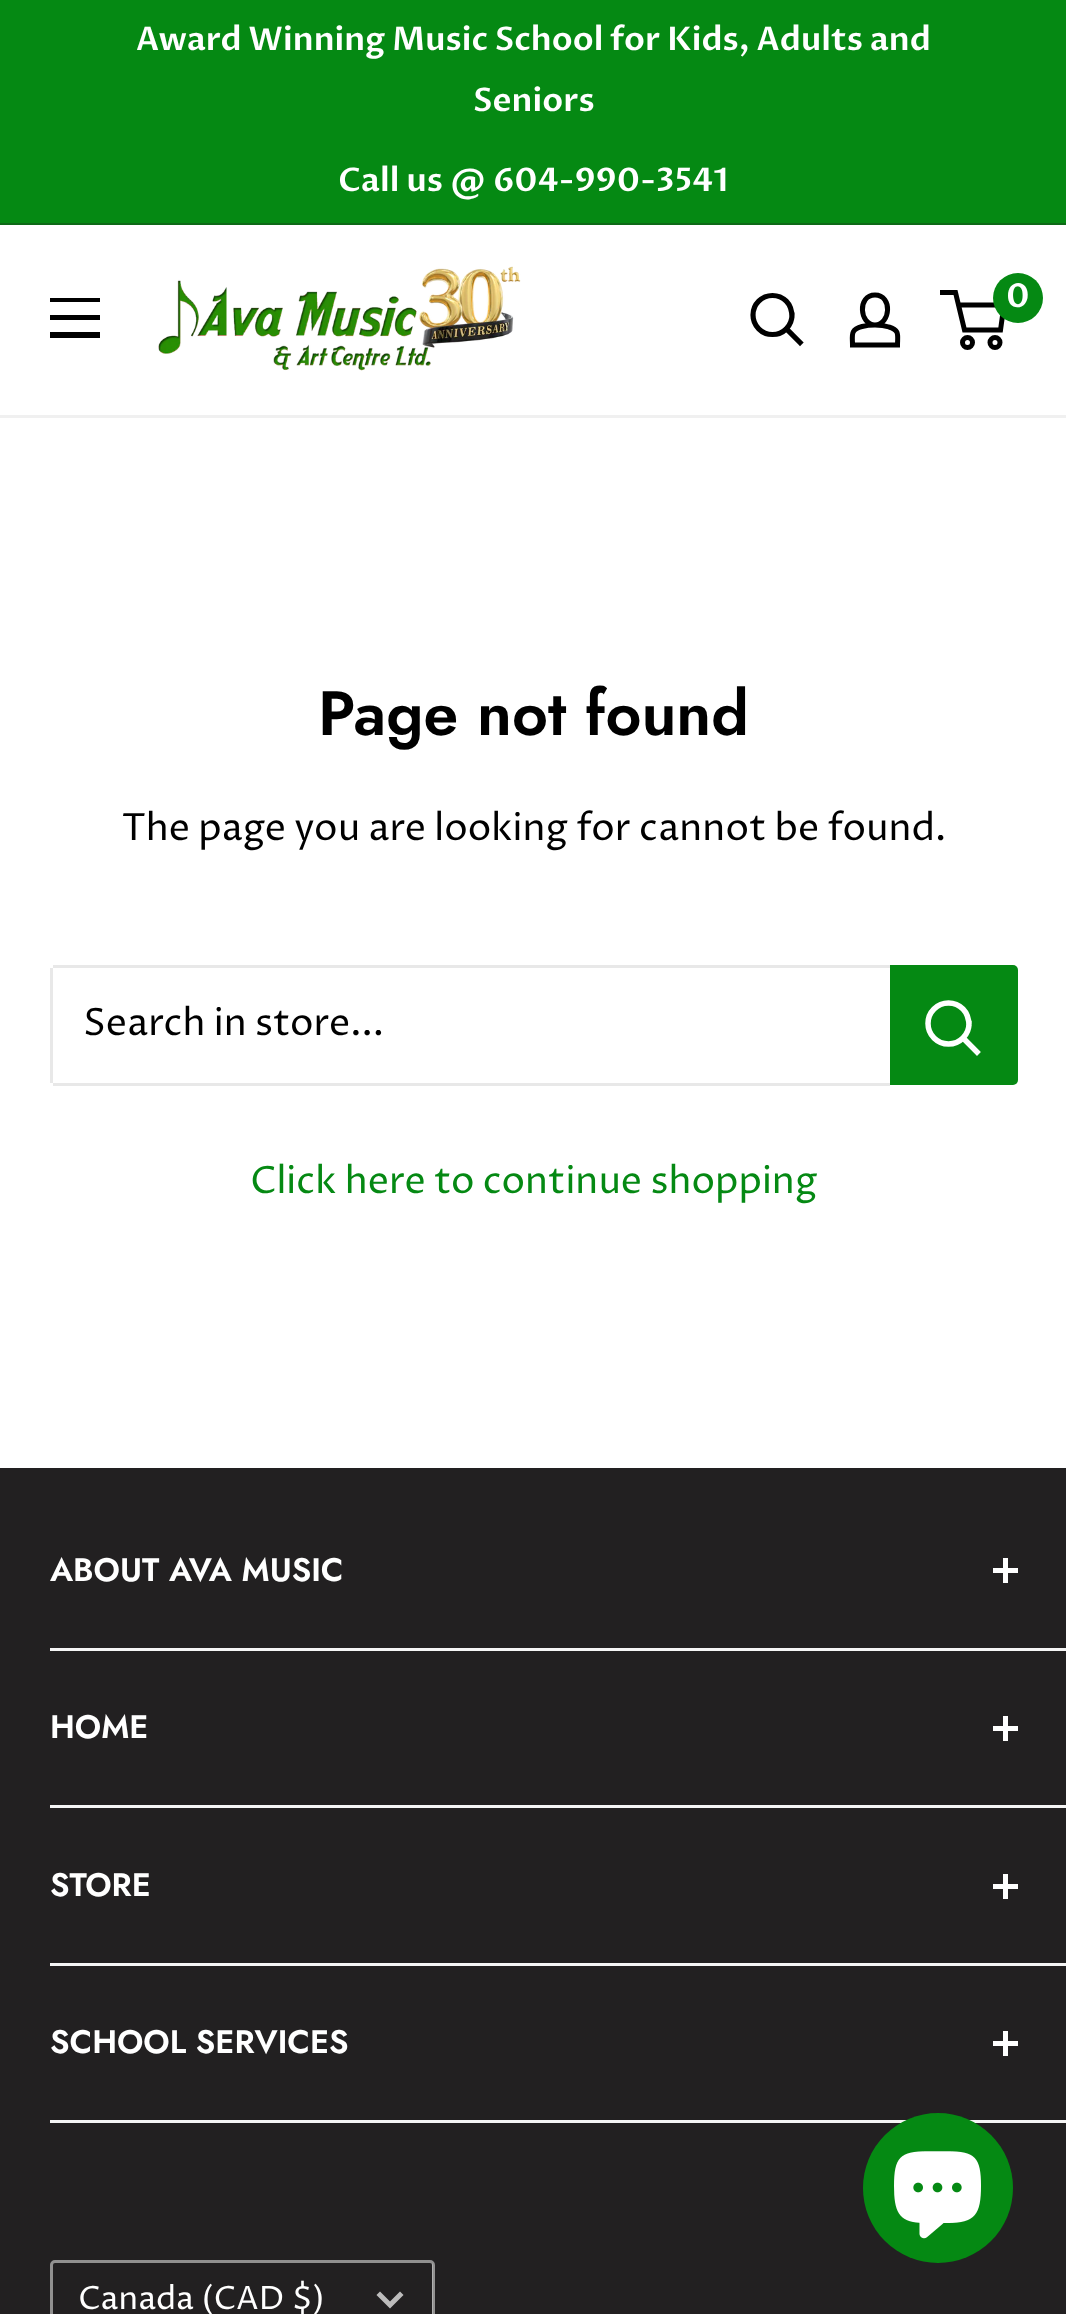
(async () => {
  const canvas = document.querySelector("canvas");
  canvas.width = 1066;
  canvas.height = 2314;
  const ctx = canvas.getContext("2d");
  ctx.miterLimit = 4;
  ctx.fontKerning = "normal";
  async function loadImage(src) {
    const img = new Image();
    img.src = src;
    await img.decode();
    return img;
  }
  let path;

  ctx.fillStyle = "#ffffff";
  ctx.fillRect(0, 0, 1066, 2314);
  for (const [x, y, w, h, color] of [
    [0, 0, 1066, 223, "#058913"],
    [0, 223, 1066, 2, "#0e6917"],
    [0, 415, 1066, 3, "#f0f0f0"],
  ]) {
    ctx.fillStyle = color;
    ctx.fillRect(x, y, w, h);
  }
  ctx.drawImage(await loadImage("img/1.png"), 158, 266, 363, 105);
  path = new Path2D("M800 342.5L786.5 329");
  ctx.strokeStyle = "#000000";
  ctx.lineWidth = 5.2;
  ctx.lineCap = "square";
  ctx.stroke(path);
  ctx.beginPath();
  ctx.arc(772.5, 315, 19.5, 0, Math.PI * 2);
  ctx.stroke();
  path = new Path2D("M875 325C879.5 325 884.5 325.5 889 327C900 330 897.5 335.5 897.5 345H852.5C852.5 335 850 329.5 862 326.5C866 325.5 870.5 325 875 325ZM875 325C859.5 325 857 295 875 295C893 295 890.5 325 875 325Z");
  ctx.lineWidth = 5;
  ctx.lineCap = "butt";
  ctx.stroke(path);
  ctx.beginPath();
  ctx.arc(967.5, 342.5, 5, 0, Math.PI * 2);
  ctx.stroke();
  ctx.beginPath();
  ctx.arc(995, 342.5, 5, 0, Math.PI * 2);
  ctx.stroke();
  path = new Path2D("M958.5 305H1004L1000.5 330H964.5L955.5 292.5H940");
  ctx.stroke(path);
  ctx.fillStyle = "#058913";
  ctx.beginPath();
  ctx.arc(1018, 298, 25, 0, Math.PI * 2);
  ctx.fill();
  ctx.fillStyle = "#000000";
  path = new Path2D("M50 332H100V338H50ZM50 298H100V302H50ZM50 315H100V320H50Z");
  ctx.fill(path, "evenodd");
  for (const [x, y, w, h, color] of [
    [53, 965, 837, 3, "#e8e8e8"],
    [53, 1083, 837, 3, "#e8e8e8"],
    [50, 968, 3, 115, "#e8e8e8"],
  ]) {
    ctx.fillStyle = color;
    ctx.fillRect(x, y, w, h);
  }
  ctx.fillStyle = "#058913";
  ctx.beginPath();
  ctx.roundRect(890, 965, 128, 120, [0, 5, 5, 0]);
  ctx.fill();
  path = new Path2D("M977 1052L963.5 1038.5");
  ctx.strokeStyle = "#ffffff";
  ctx.lineWidth = 5.5;
  ctx.lineCap = "square";
  ctx.stroke(path);
  ctx.beginPath();
  ctx.arc(948.5, 1023.5, 20.5, 0, Math.PI * 2);
  ctx.stroke();
  for (const [x, y, w, h, color] of [
    [0, 1468, 1066, 846, "#222021"],
    [50, 1648, 1016, 3, "#f5f5f5"],
    [1003, 1558, 5, 25, "#ffffff"],
    [993, 1568, 25, 5, "#ffffff"],
    [50, 1805, 1016, 3, "#f5f5f5"],
    [1003, 1716, 5, 25, "#ffffff"],
    [993, 1726, 25, 5, "#ffffff"],
    [50, 1963, 1016, 3, "#f5f5f5"],
    [1003, 1874, 5, 25, "#ffffff"],
    [993, 1884, 25, 5, "#ffffff"],
    [50, 2120, 1016, 3, "#f5f5f5"],
    [1003, 2031, 5, 25, "#ffffff"],
    [993, 2041, 25, 5, "#ffffff"],
  ]) {
    ctx.fillStyle = color;
    ctx.fillRect(x, y, w, h);
  }
  ctx.fillStyle = "#616061";
  path = new Path2D("M53 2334V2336C53 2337 54 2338 56 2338H430C432 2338 433 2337 433 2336V2266C433 2265 433 2264 432 2263V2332C432 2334 431 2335 430 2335H55Z");
  ctx.fill(path);
  ctx.beginPath();
  ctx.roundRect(51.5, 2261.5, 382, 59, 3.5);
  ctx.strokeStyle = "rgba(255, 255, 255, 0.5)";
  ctx.lineWidth = 3;
  ctx.stroke();
  path = new Path2D("M400 2295L390 2305L380 2295");
  ctx.strokeStyle = "#bdbcbc";
  ctx.lineWidth = 5;
  ctx.stroke(path);
  ctx.fillStyle = "#058913";
  ctx.beginPath();
  ctx.arc(938, 2188, 75, 0, Math.PI * 2);
  ctx.fill();
  ctx.drawImage(await loadImage("img/2.png"), 894, 2151, 87, 88);
  ctx.font = "600 32.5px Proza Libre";
  ctx.fillStyle = "#ffffff";
  for (const [text, x, y] of [
    ["Award Winning Music School for Kids, Adults and", 136, 50],
    ["Seniors", 473, 111],
    ["Call us @ 604-990-3541", 338, 191],
  ]) {
    ctx.fillText(text, x, y);
  }
  ctx.font = "600 33px Proza Libre";
  ctx.fillText("0", 1006, 307);
  ctx.font = "600 62.5px Jost";
  ctx.fillStyle = "#000000";
  ctx.fillText("Page not found", 318, 735);
  ctx.font = "37.5px Proza Libre";
  ctx.fillText("The page you are looking for cannot be found.", 122, 840);
  ctx.fillText("Search in store...", 83, 1035);
  ctx.fillStyle = "#058913";
  ctx.fillText("Click here to continue shopping", 250, 1193);
  ctx.font = "600 32.5px Jost";
  ctx.fillStyle = "#ffffff";
  for (const [text, x, y] of [
    ["ABOUT AVA MUSIC", 50, 1581],
    ["HOME", 50, 1738],
    ["STORE", 50, 1896],
    ["SCHOOL SERVICES", 50, 2053],
  ]) {
    ctx.fillText(text, x, y);
  }
  ctx.font = "32px Proza Libre";
  ctx.fillText("Canada (CAD $)", 78, 2309);
})();
